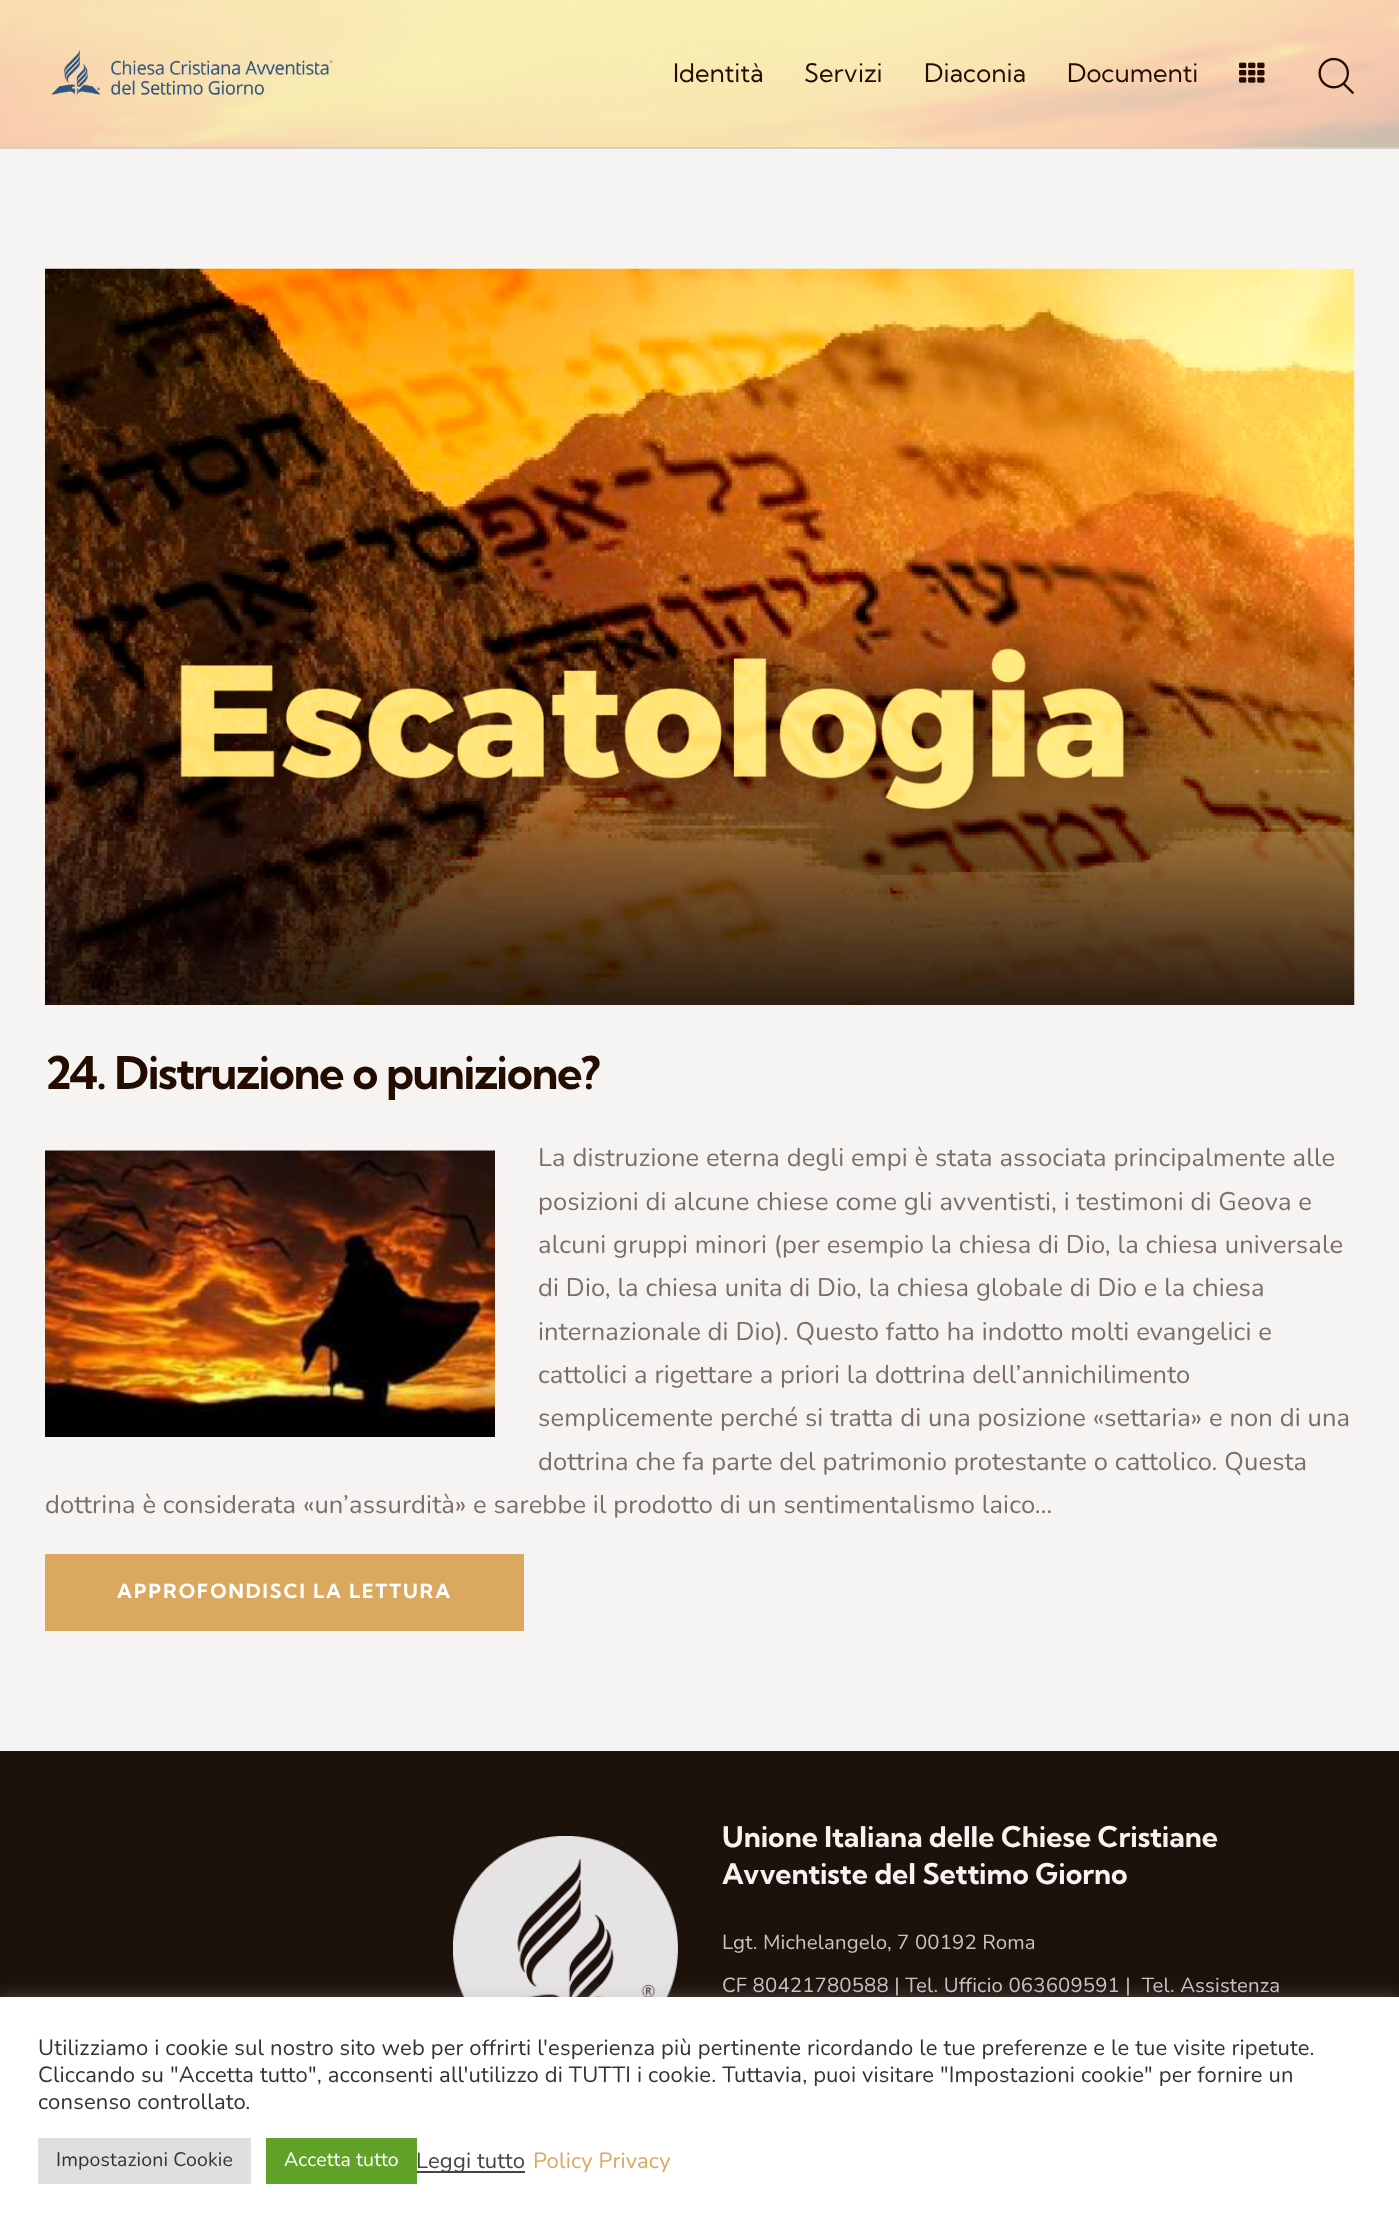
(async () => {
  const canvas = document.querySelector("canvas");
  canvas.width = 1399;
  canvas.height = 2229;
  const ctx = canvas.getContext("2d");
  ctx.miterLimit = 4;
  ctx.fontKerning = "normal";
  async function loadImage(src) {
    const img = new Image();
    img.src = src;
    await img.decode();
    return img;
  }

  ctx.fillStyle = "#f6f4f2";
  ctx.fillRect(0, 0, 1399, 2229);
  ctx.drawImage(await loadImage("img/1.png"), 0, 0, 1399, 147);
  ctx.fillStyle = "#d3cfcb";
  ctx.fillRect(0, 147, 1399, 2);
  ctx.drawImage(await loadImage("img/2.png"), 51, 50, 282, 45);
  ctx.drawImage(await loadImage("img/3.png"), 1239, 62, 26, 21);
  ctx.drawImage(await loadImage("img/4.png"), 1318, 57, 36, 37);
  ctx.drawImage(await loadImage("img/5.png"), 45, 268, 1310, 737);
  ctx.drawImage(await loadImage("img/6.png"), 45, 1150, 450, 287);
  ctx.fillStyle = "#dba860";
  ctx.fillRect(45, 1554, 479, 77);
  ctx.fillStyle = "#1c110b";
  ctx.fillRect(0, 1751, 1399, 246);
  ctx.drawImage(await loadImage("img/7.png"), 453, 1836, 225, 161);
  ctx.fillStyle = "rgba(172, 171, 171, 0.3)";
  ctx.filter = "blur(7.5px)";
  ctx.beginPath();
  ctx.rect(0, 1995, 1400, 233);
  ctx.fill();
  ctx.filter = "none";
  for (const [x, y, w, h, color] of [
    [0, 1997, 1399, 232, "#ffffff"],
    [38, 2138, 213, 46, "#dedfe0"],
    [266, 2138, 151, 46, "#61a229"],
    [417, 2171, 108, 2, "#444444"],
  ]) {
    ctx.fillStyle = color;
    ctx.fillRect(x, y, w, h);
  }
  ctx.font = "25.5px Kumbh Sans";
  ctx.fillStyle = "#240c00";
  for (const [text, x, y] of [
    ["Identità", 673, 82],
    ["Servizi", 804, 82],
    ["Diaconia", 924, 82],
    ["Documenti", 1067, 82],
  ]) {
    ctx.fillText(text, x, y);
  }
  ctx.letterSpacing = "-1.35px";
  ctx.font = "bold 45px Kumbh Sans";
  ctx.fillText("24. Distruzione o punizione?", 45, 1089);
  ctx.letterSpacing = "0.15px";
  ctx.font = "25.5px Nunito";
  ctx.fillStyle = "#7c6d66";
  for (const [text, x, y] of [
    ["La distruzione eterna degli empi è stata associata principalmente alle", 538, 1166],
    ["posizioni di alcune chiese come gli avventisti, i testimoni di Geova e", 538, 1210],
    ["alcuni gruppi minori (per esempio la chiesa di Dio, la chiesa universale", 538, 1253],
    ["di Dio, la chiesa unita di Dio, la chiesa globale di Dio e la chiesa", 538, 1296],
    ["internazionale di Dio). Questo fatto ha indotto molti evangelici e", 538, 1340],
    ["cattolici a rigettare a priori la dottrina dell’annichilimento", 538, 1383],
    ["semplicemente perché si tratta di una posizione «settaria» e non di una", 538, 1426],
    ["dottrina che fa parte del patrimonio protestante o cattolico. Questa", 538, 1470],
    ["dottrina è considerata «un’assurdità» e sarebbe il prodotto di un sentimentalismo laico…", 45, 1513],
  ]) {
    ctx.fillText(text, x, y);
  }
  ctx.letterSpacing = "1.95px";
  ctx.font = "bold 19.5px Kumbh Sans";
  ctx.fillStyle = "#ffffff";
  ctx.fillText("APPROFONDISCI LA LETTURA", 117, 1598);
  ctx.letterSpacing = "0px";
  ctx.font = "bold 28.5px Kumbh Sans";
  ctx.fillStyle = "#f8f2f1";
  ctx.fillText("Unione Italiana delle Chiese Cristiane", 722, 1847);
  ctx.fillText("Avventiste del Settimo Giorno", 722, 1884);
  ctx.letterSpacing = "0.15px";
  ctx.font = "20.4px Nunito";
  ctx.fillStyle = "#cac2c0";
  ctx.fillText("Lgt. Michelangelo, 7 00192 Roma", 722, 1949);
  ctx.fillText("CF 80421780588 | Tel. Ufficio 063609591 |  Tel. Assistenza", 722, 1992);
  ctx.font = "22px Nunito";
  ctx.fillStyle = "#333333";
  for (const [text, x, y] of [
    ["Utilizziamo i cookie sul nostro sito web per offrirti l'esperienza più pertinente ricordando le tue preferenze e le tue visite ripetute.", 38, 2055],
    ["Cliccando su \"Accetta tutto\", acconsenti all'utilizzo di TUTTI i cookie. Tuttavia, puoi visitare \"Impostazioni cookie\" per fornire un", 38, 2082],
    ["consenso controllato.", 38, 2109],
  ]) {
    ctx.fillText(text, x, y);
  }
  ctx.font = "19.5px Nunito";
  ctx.fillText("Impostazioni Cookie", 56, 2166);
  ctx.fillStyle = "#ffffff";
  ctx.fillText("Accetta tutto", 284, 2166);
  ctx.font = "22px Nunito";
  ctx.fillStyle = "#444444";
  ctx.fillText("Leggi tutto", 416, 2168);
  ctx.fillStyle = "#dba860";
  ctx.fillText("Policy Privacy", 533, 2168);
})();
